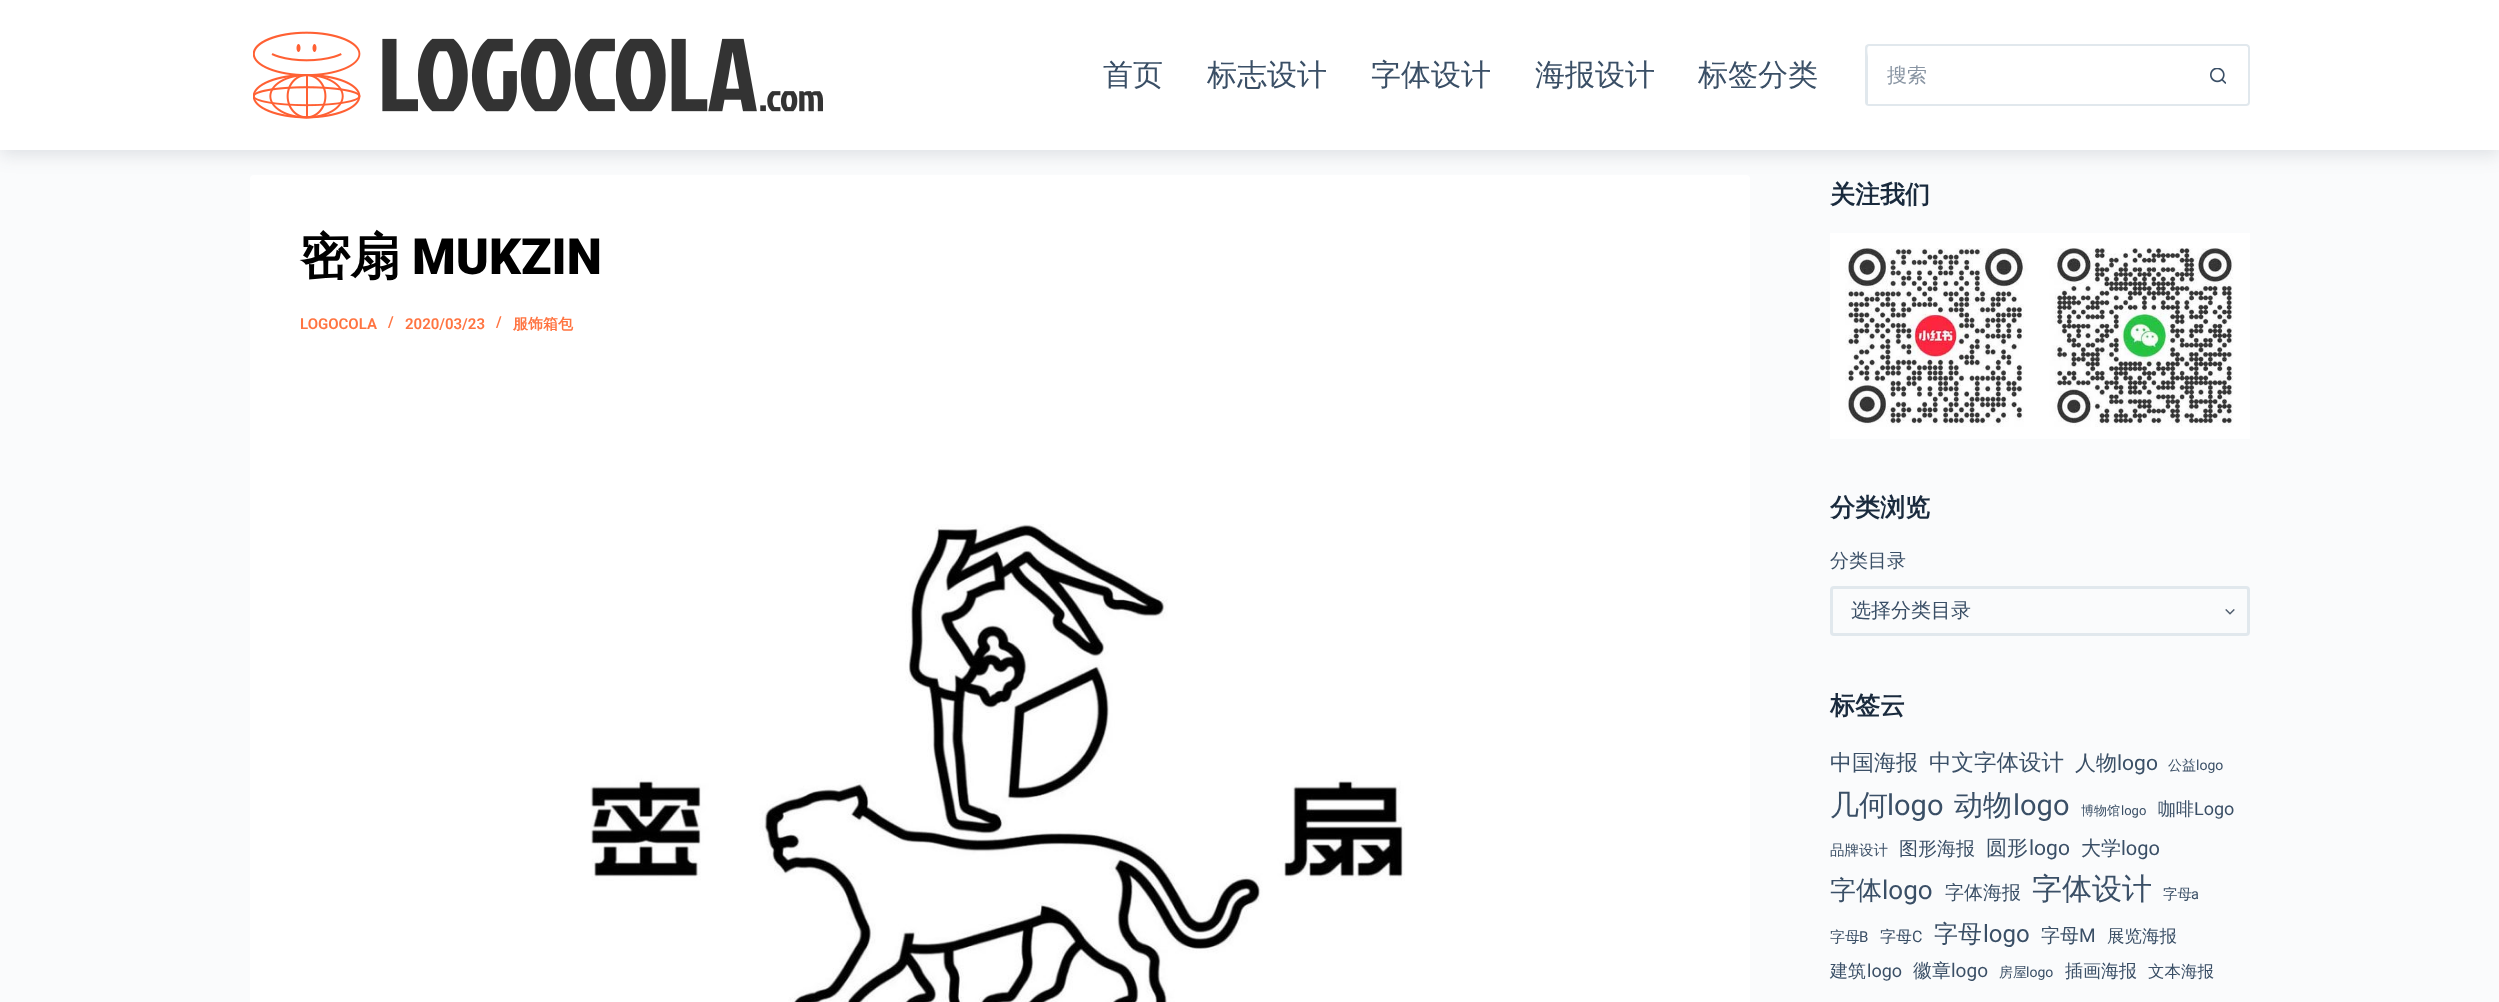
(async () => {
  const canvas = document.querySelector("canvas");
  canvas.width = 2499;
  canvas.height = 1002;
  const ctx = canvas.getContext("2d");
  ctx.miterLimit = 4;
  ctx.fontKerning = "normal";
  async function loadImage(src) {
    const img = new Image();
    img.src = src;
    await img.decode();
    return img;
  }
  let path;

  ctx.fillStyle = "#fafbfc";
  ctx.fillRect(0, 0, 2499, 1002);
  ctx.fillStyle = "#ffffff";
  ctx.beginPath();
  ctx.roundRect(250, 175, 1500, 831, 4);
  ctx.fill();
  ctx.fillStyle = "rgba(44, 62, 80, 0.15)";
  ctx.filter = "blur(9.5px)";
  ctx.beginPath();
  ctx.rect(0, 4, 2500, 150);
  ctx.fill();
  ctx.filter = "none";
  ctx.fillStyle = "#ffffff";
  ctx.fillRect(0, 0, 2499, 150);
  ctx.drawImage(await loadImage("img/1.png"), 253, 31, 570, 88);
  ctx.fillStyle = "#e1e8ed";
  path = new Path2D("M1869 44H2188V106H1869C1867 106 1865 105 1865 102V48C1865 45 1867 44 1869 44ZM1869 46H2188V104H1868V103V57C1868 55 1866 46 1869 46Z");
  ctx.fill(path, "evenodd");
  path = new Path2D("M2188 44H2246C2248 44 2250 45 2250 48V102C2250 105 2248 106 2246 106H2188ZM2188 46H2246C2247 46 2248 47 2248 48V102C2248 103 2247 104 2246 104H2188Z");
  ctx.fill(path, "evenodd");
  ctx.drawImage(await loadImage("img/2.png"), 2210, 68, 16, 16);
  ctx.drawImage(await loadImage("img/3.png"), 590, 524, 815, 478);
  ctx.drawImage(await loadImage("img/4.png"), 1830, 233, 420, 206);
  ctx.drawImage(await loadImage("img/5.png"), 2225, 609, 10, 6);
  ctx.beginPath();
  ctx.roundRect(1831.5, 587.5, 417, 47, 2.5);
  ctx.strokeStyle = "#e1e8ed";
  ctx.lineWidth = 3;
  ctx.stroke();
  ctx.font = "500 30px WenQuanYi Zen Hei";
  ctx.fillStyle = "#3a4f66";
  for (const [text, x, y] of [
    ["首页", 1103, 85],
    ["标志设计", 1207, 85],
    ["字体设计", 1371, 85],
    ["海报设计", 1535, 85],
    ["标签分类", 1698, 85],
  ]) {
    ctx.fillText(text, x, y);
  }
  ctx.font = "500 20px WenQuanYi Zen Hei";
  ctx.fillStyle = "#8995a3";
  ctx.fillText("搜索", 1887, 82);
  ctx.font = "bold 50px WenQuanYi Zen Hei";
  ctx.fillStyle = "#000000";
  ctx.fillText("密扇", 300, 274);
  ctx.font = "900 50px Roboto";
  ctx.fillText("MUKZIN", 412, 274);
  ctx.font = "600 15px Roboto";
  ctx.fillStyle = "#ff7441";
  for (const [text, x, y] of [
    ["LOGOCOLA", 300, 329],
    ["/", 388, 327],
    ["2020/03/23", 405, 329],
    ["/", 496, 327],
  ]) {
    ctx.fillText(text, x, y);
  }
  ctx.font = "bold 15px WenQuanYi Zen Hei";
  ctx.fillText("服饰箱包", 513, 329);
  ctx.font = "bold 25px WenQuanYi Zen Hei";
  ctx.fillStyle = "#192a3d";
  ctx.fillText("关注我们", 1830, 203);
  ctx.fillText("分类浏览", 1830, 516);
  ctx.font = "500 19px WenQuanYi Zen Hei";
  ctx.fillStyle = "#3a4f66";
  ctx.fillText("分类目录", 1830, 567);
  ctx.font = "500 20px WenQuanYi Zen Hei";
  ctx.fillText("选择分类目录", 1851, 617);
  ctx.font = "bold 25px WenQuanYi Zen Hei";
  ctx.fillStyle = "#192a3d";
  ctx.fillText("标签云", 1830, 714);
  ctx.font = "500 22px WenQuanYi Zen Hei";
  ctx.fillStyle = "#3a4f66";
  ctx.fillText("中国海报", 1830, 770);
  ctx.font = "500 22.5px WenQuanYi Zen Hei";
  ctx.fillText("中文字体设计", 1929, 770);
  ctx.font = "500 21px WenQuanYi Zen Hei";
  ctx.fillText("人物", 2075, 770);
  ctx.font = "21px Roboto";
  ctx.fillText("logo", 2117, 770);
  ctx.font = "500 14px WenQuanYi Zen Hei";
  ctx.fillText("公益", 2168, 770);
  ctx.font = "14px Roboto";
  ctx.fillText("logo", 2196, 770);
  ctx.font = "500 29px WenQuanYi Zen Hei";
  ctx.fillText("几何", 1830, 815);
  ctx.font = "29px Roboto";
  ctx.fillText("logo", 1887, 815);
  ctx.font = "500 29px WenQuanYi Zen Hei";
  ctx.fillText("动物", 1954, 815);
  ctx.font = "29px Roboto";
  ctx.fillText("logo", 2013, 815);
  ctx.font = "500 13px WenQuanYi Zen Hei";
  ctx.fillText("博物馆", 2081, 815);
  ctx.font = "13px Roboto";
  ctx.fillText("logo", 2121, 815);
  ctx.font = "500 18px WenQuanYi Zen Hei";
  ctx.fillText("咖啡", 2158, 815);
  ctx.font = "18px Roboto";
  ctx.fillText("Logo", 2194, 815);
  ctx.font = "500 14.5px WenQuanYi Zen Hei";
  ctx.fillText("品牌设计", 1830, 855);
  ctx.font = "500 19px WenQuanYi Zen Hei";
  ctx.fillText("图形海报", 1899, 855);
  ctx.font = "500 21px WenQuanYi Zen Hei";
  ctx.fillText("圆形", 1986, 855);
  ctx.font = "21px Roboto";
  ctx.fillText("logo", 2029, 855);
  ctx.font = "500 20px WenQuanYi Zen Hei";
  ctx.fillText("大学", 2081, 855);
  ctx.font = "20px Roboto";
  ctx.fillText("logo", 2121, 855);
  ctx.font = "500 26px WenQuanYi Zen Hei";
  ctx.fillText("字体", 1830, 899);
  ctx.font = "26px Roboto";
  ctx.fillText("logo", 1882, 899);
  ctx.font = "500 19px WenQuanYi Zen Hei";
  ctx.fillText("字体海报", 1945, 899);
  ctx.font = "500 30px WenQuanYi Zen Hei";
  ctx.fillText("字体设计", 2032, 899);
  ctx.font = "500 14.5px WenQuanYi Zen Hei";
  ctx.fillText("字母", 2163, 899);
  ctx.font = "14.5px Roboto";
  ctx.fillText("a", 2191, 899);
  ctx.font = "500 15px WenQuanYi Zen Hei";
  ctx.fillText("字母", 1830, 942);
  ctx.font = "15px Roboto";
  ctx.fillText("B", 1859, 942);
  ctx.font = "500 16px WenQuanYi Zen Hei";
  ctx.fillText("字母", 1880, 942);
  ctx.font = "16px Roboto";
  ctx.fillText("C", 1912, 942);
  ctx.font = "500 24px WenQuanYi Zen Hei";
  ctx.fillText("字母", 1934, 942);
  ctx.font = "24px Roboto";
  ctx.fillText("logo", 1983, 942);
  ctx.font = "500 19px WenQuanYi Zen Hei";
  ctx.fillText("字母", 2041, 942);
  ctx.font = "19px Roboto";
  ctx.fillText("M", 2079, 942);
  ctx.font = "500 17.5px WenQuanYi Zen Hei";
  ctx.fillText("展览海报", 2107, 942);
  ctx.font = "500 18px WenQuanYi Zen Hei";
  ctx.fillText("建筑", 1830, 977);
  ctx.font = "18px Roboto";
  ctx.fillText("logo", 1867, 977);
  ctx.font = "500 19px WenQuanYi Zen Hei";
  ctx.fillText("徽章", 1913, 977);
  ctx.font = "19px Roboto";
  ctx.fillText("logo", 1951, 977);
  ctx.font = "500 14px WenQuanYi Zen Hei";
  ctx.fillText("房屋", 1999, 977);
  ctx.font = "14px Roboto";
  ctx.fillText("logo", 2026, 977);
  ctx.font = "500 18px WenQuanYi Zen Hei";
  ctx.fillText("插画海报", 2065, 977);
  ctx.font = "500 16.5px WenQuanYi Zen Hei";
  ctx.fillText("文本海报", 2148, 977);
})();
